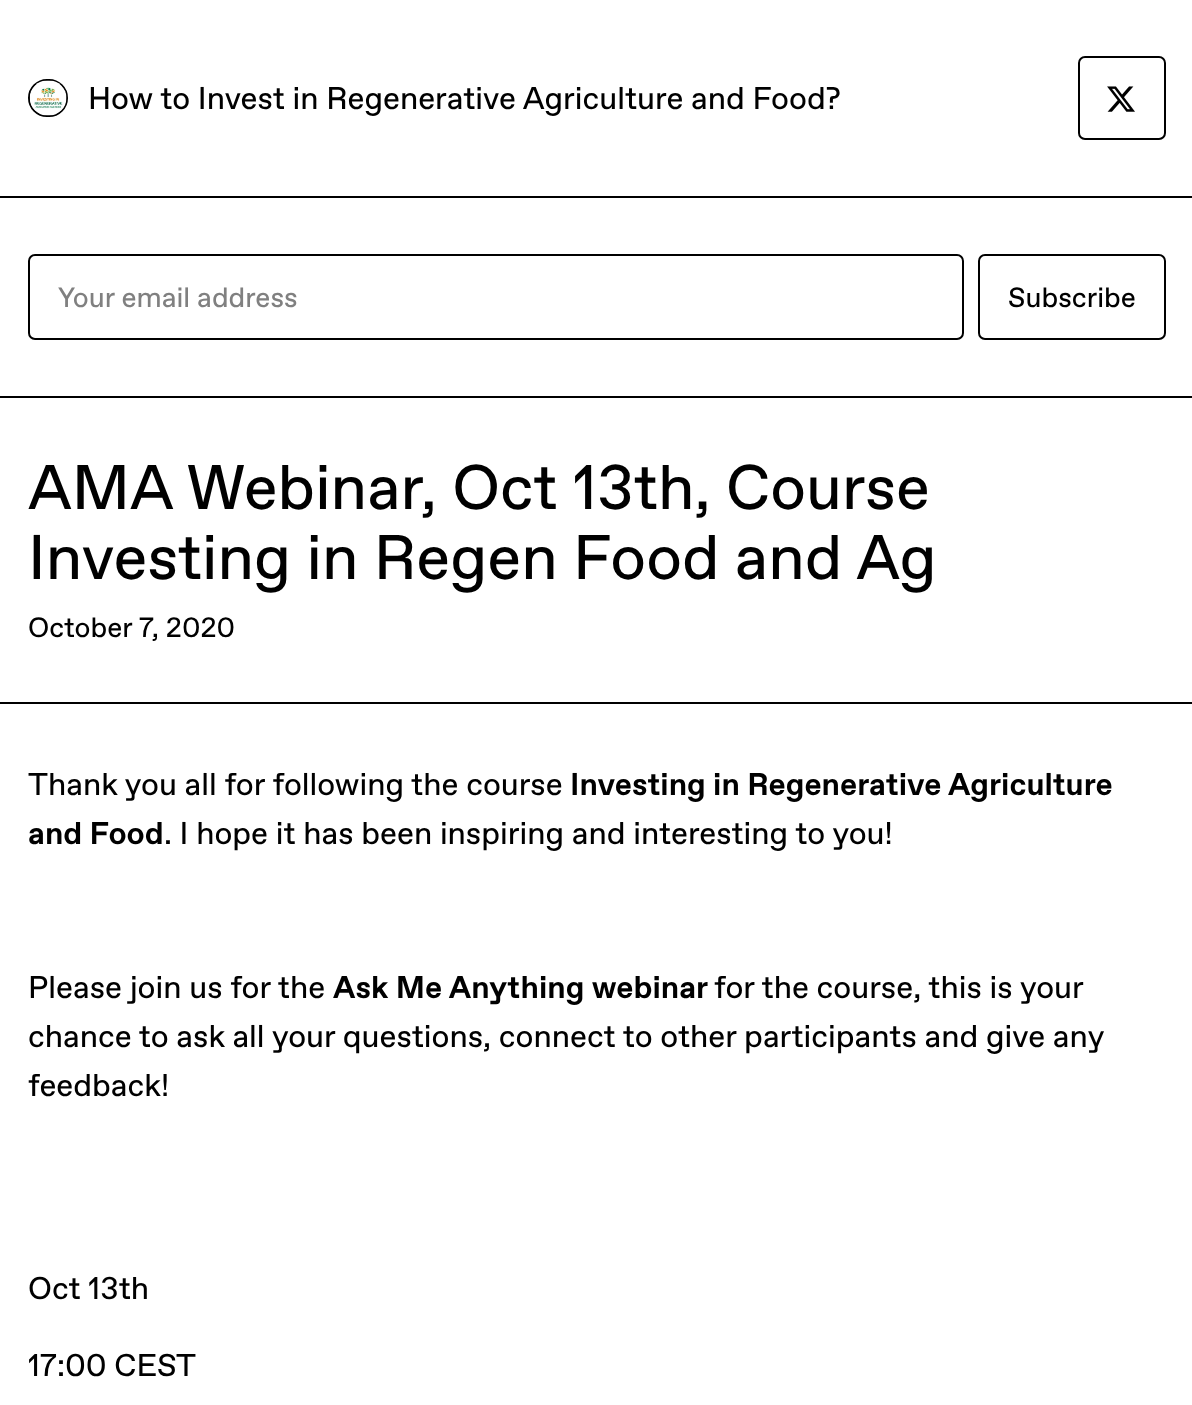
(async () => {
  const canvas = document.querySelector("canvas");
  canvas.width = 1192;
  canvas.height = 1405;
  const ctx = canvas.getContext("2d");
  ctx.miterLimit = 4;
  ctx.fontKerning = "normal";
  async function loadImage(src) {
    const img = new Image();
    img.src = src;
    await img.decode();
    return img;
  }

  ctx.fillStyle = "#ffffff";
  ctx.fillRect(0, 0, 1192, 1405);
  ctx.fillStyle = "#000000";
  ctx.fillRect(0, 196, 1192, 2);
  ctx.beginPath();
  ctx.roundRect(29, 80, 38, 36, 18);
  ctx.strokeStyle = "#000000";
  ctx.lineWidth = 2;
  ctx.stroke();
  ctx.drawImage(await loadImage("img/1.png"), 29, 80, 38, 36);
  ctx.beginPath();
  ctx.roundRect(1079, 57, 86, 82, 6);
  ctx.stroke();
  ctx.drawImage(await loadImage("img/2.png"), 1107, 86, 28, 26);
  ctx.fillRect(0, 396, 1192, 2);
  ctx.beginPath();
  ctx.roundRect(29, 255, 934, 84, 6);
  ctx.stroke();
  ctx.beginPath();
  ctx.roundRect(979, 255, 186, 84, 6);
  ctx.stroke();
  ctx.fillRect(0, 702, 1192, 2);
  ctx.font = "31.5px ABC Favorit";
  ctx.fillText("How to Invest in Regenerative Agriculture and Food?", 88, 109);
  ctx.font = "28px ABC Favorit";
  ctx.fillStyle = "#808080";
  ctx.fillText("Your email address", 58, 307);
  ctx.fillStyle = "#000000";
  ctx.fillText("Subscribe", 1008, 307);
  ctx.font = "63px ABC Favorit";
  ctx.fillText("AMA Webinar, Oct 13th, Course", 28, 509);
  ctx.fillText("Investing in Regen Food and Ag", 28, 579);
  ctx.font = "28px ABC Favorit";
  ctx.fillText("October 7, 2020", 28, 637);
  ctx.font = "31.5px ABC Favorit";
  ctx.fillText("Thank you all for following the course", 28, 795);
  ctx.font = "bold 31.5px ABC Favorit";
  ctx.fillText("Investing in Regenerative Agriculture", 570, 795);
  ctx.fillText("and Food", 28, 844);
  ctx.font = "31.5px ABC Favorit";
  ctx.fillText(". I hope it has been inspiring and interesting to you!", 164, 844);
  ctx.fillText("Please join us for the", 28, 998);
  ctx.font = "bold 31.5px ABC Favorit";
  ctx.fillText("Ask Me Anything webinar", 333, 998);
  ctx.font = "31.5px ABC Favorit";
  for (const [text, x, y] of [
    ["for the course, this is your", 714, 998],
    ["chance to ask all your questions, connect to other participants and give any", 28, 1047],
    ["feedback!", 28, 1096],
    ["Oct 13th", 28, 1299],
    ["17:00 CEST", 28, 1376],
  ]) {
    ctx.fillText(text, x, y);
  }
})();
